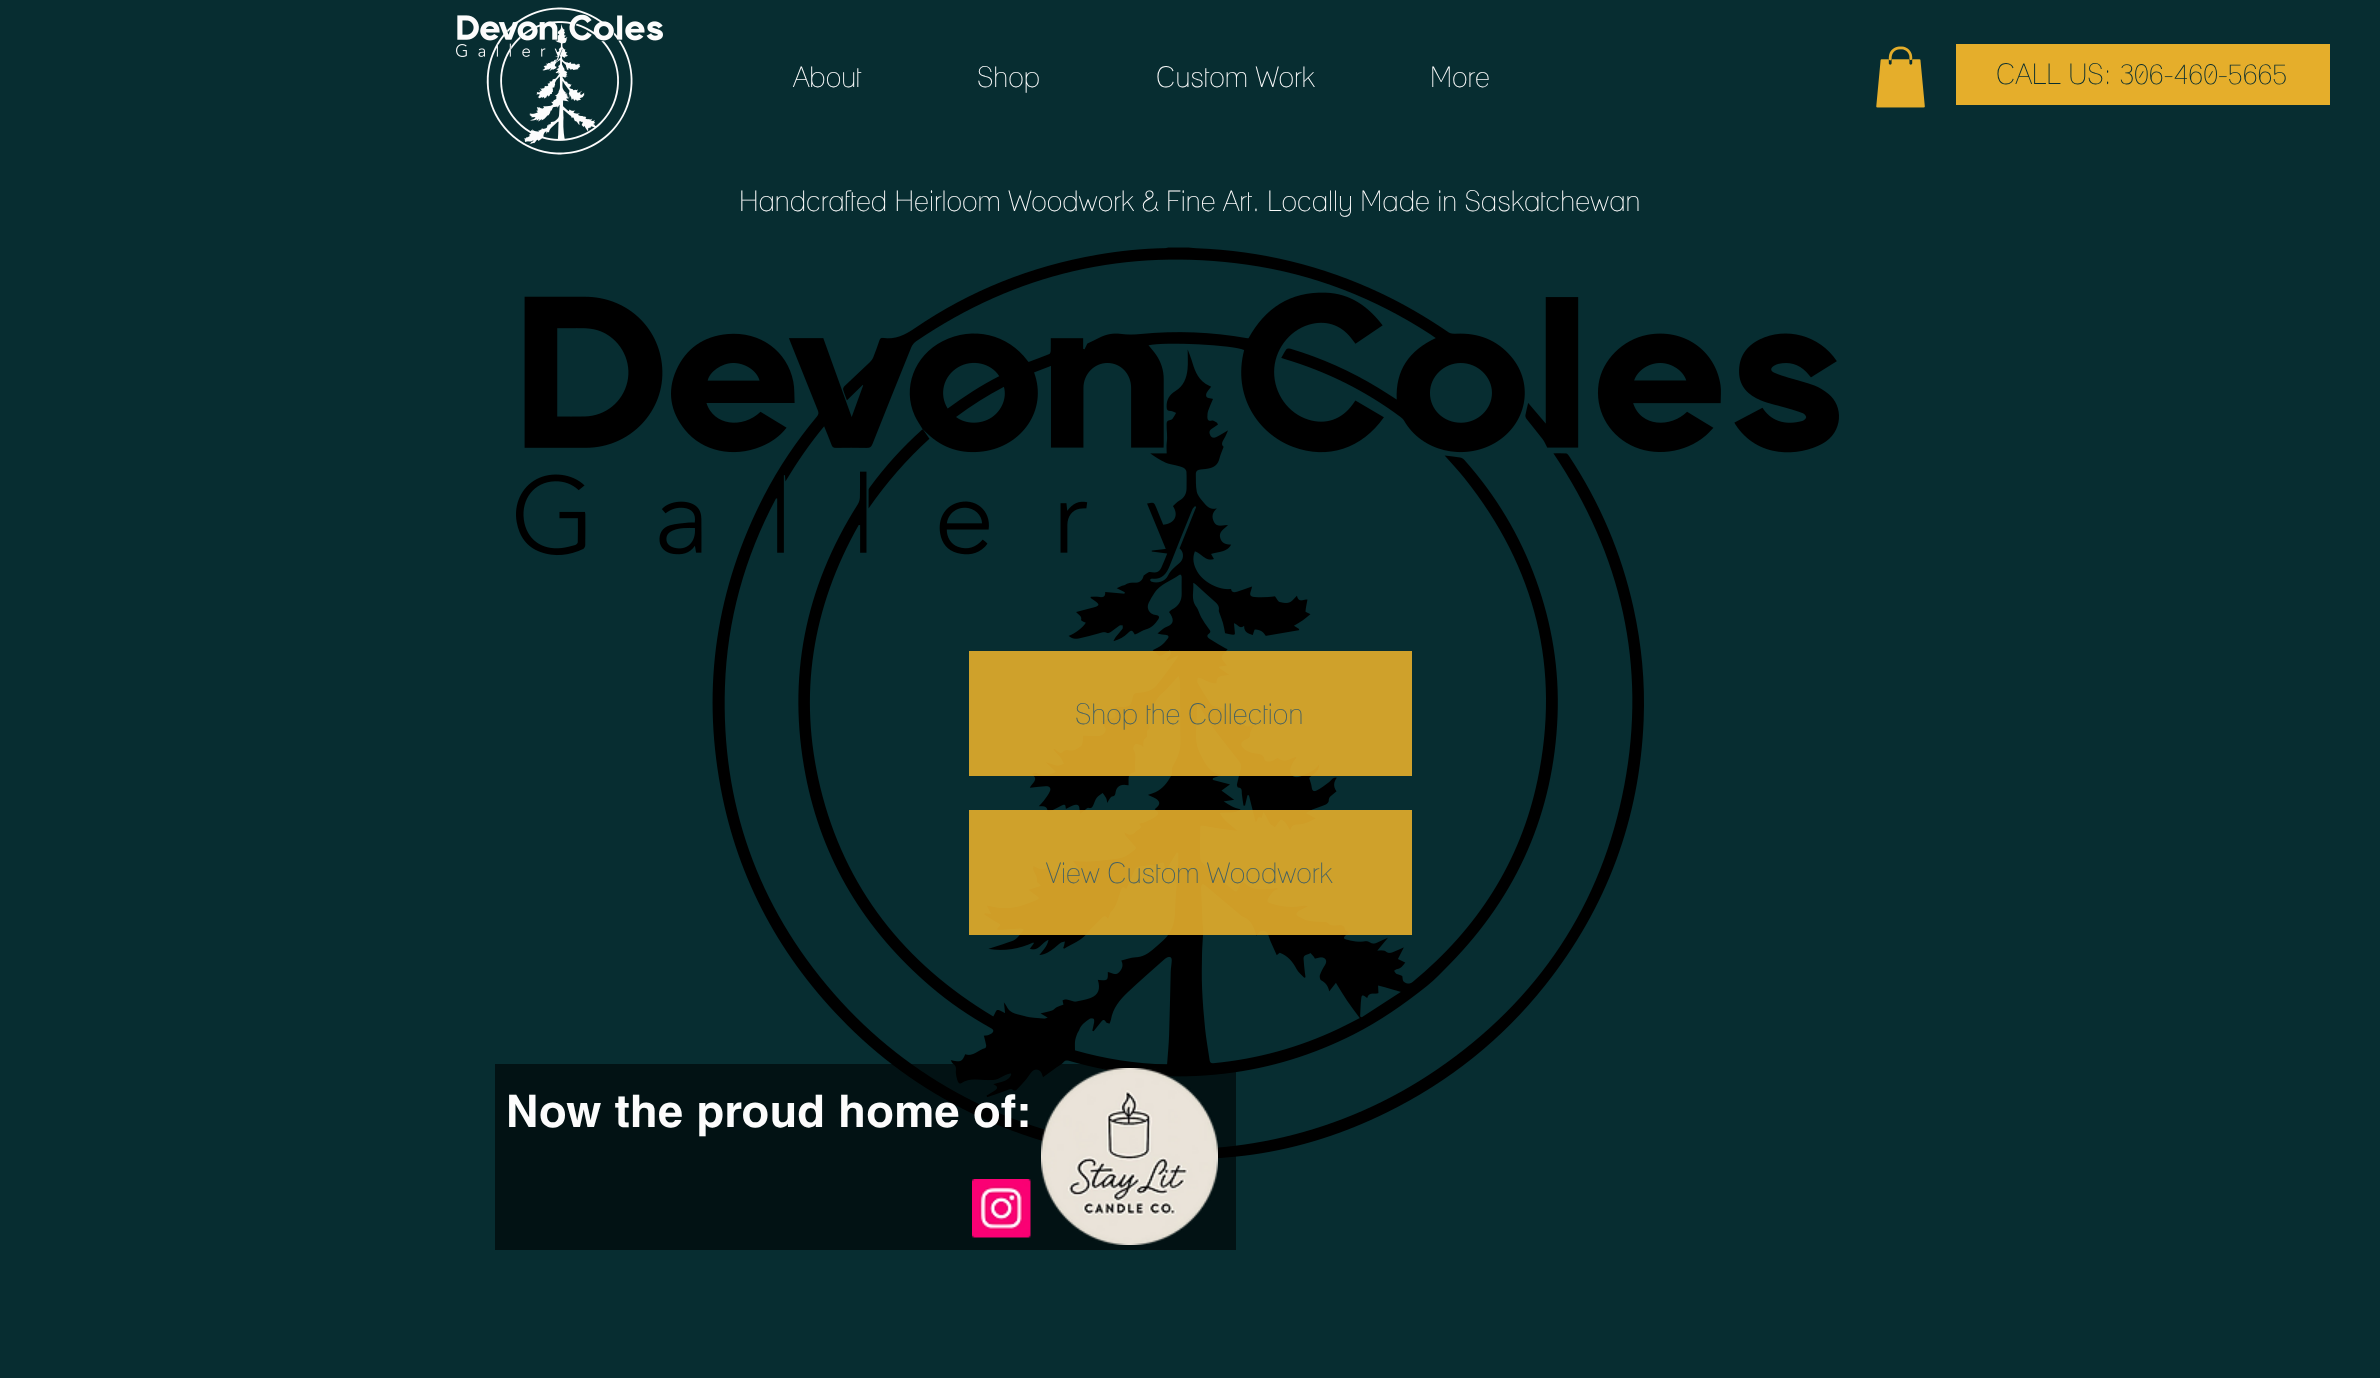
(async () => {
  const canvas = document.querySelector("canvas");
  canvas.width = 2380;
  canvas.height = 1378;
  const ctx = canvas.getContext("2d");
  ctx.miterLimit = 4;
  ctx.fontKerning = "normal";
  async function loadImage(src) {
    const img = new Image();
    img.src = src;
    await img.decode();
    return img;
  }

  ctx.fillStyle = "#072d31";
  ctx.fillRect(0, 0, 2380, 1378);
  ctx.drawImage(await loadImage("img/1.png"), 456, 7, 207, 148);
  ctx.drawImage(await loadImage("img/2.png"), 1876, 46, 49, 62);
  ctx.fillStyle = "#e5ae2b";
  ctx.fillRect(1956, 44, 374, 61);
  ctx.drawImage(await loadImage("img/3.png"), 516, 247, 1323, 912);
  for (const [x, y, w, h, color] of [
    [969, 651, 443, 125, "rgba(229, 174, 43, 0.9)"],
    [969, 810, 443, 125, "rgba(229, 174, 43, 0.9)"],
    [495, 1064, 741, 186, "rgba(0, 0, 0, 0.59)"],
  ]) {
    ctx.fillStyle = color;
    ctx.fillRect(x, y, w, h);
  }
  ctx.drawImage(await loadImage("img/4.png"), 1041, 1068, 177, 177);
  ctx.drawImage(await loadImage("img/5.png"), 972, 1179, 59, 59);
  ctx.font = "28.5px 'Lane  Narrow'";
  ctx.fillStyle = "#fcfcfc";
  for (const [text, x, y] of [
    ["About", 793, 87],
    ["Shop", 977, 87],
    ["Custom Work", 1156, 87],
    ["More", 1430, 87],
  ]) {
    ctx.fillText(text, x, y);
  }
  ctx.fillStyle = "#072d31";
  ctx.fillText("CALL US: 306-460-5665", 1996, 84);
  ctx.fillStyle = "#fcfcfc";
  ctx.fillText("Handcrafted Heirloom Woodwork & Fine Art. Locally Made in Saskatchewan", 739, 211);
  ctx.fillStyle = "#446164";
  ctx.fillText("Shop the Collection", 1075, 724);
  ctx.fillText("View Custom Woodwork", 1046, 883);
  ctx.letterSpacing = "0.45px";
  ctx.font = "bold 45px helvetica";
  ctx.fillStyle = "#fcfcfc";
  ctx.fillText("Now the proud home of:", 506, 1127);
})();
